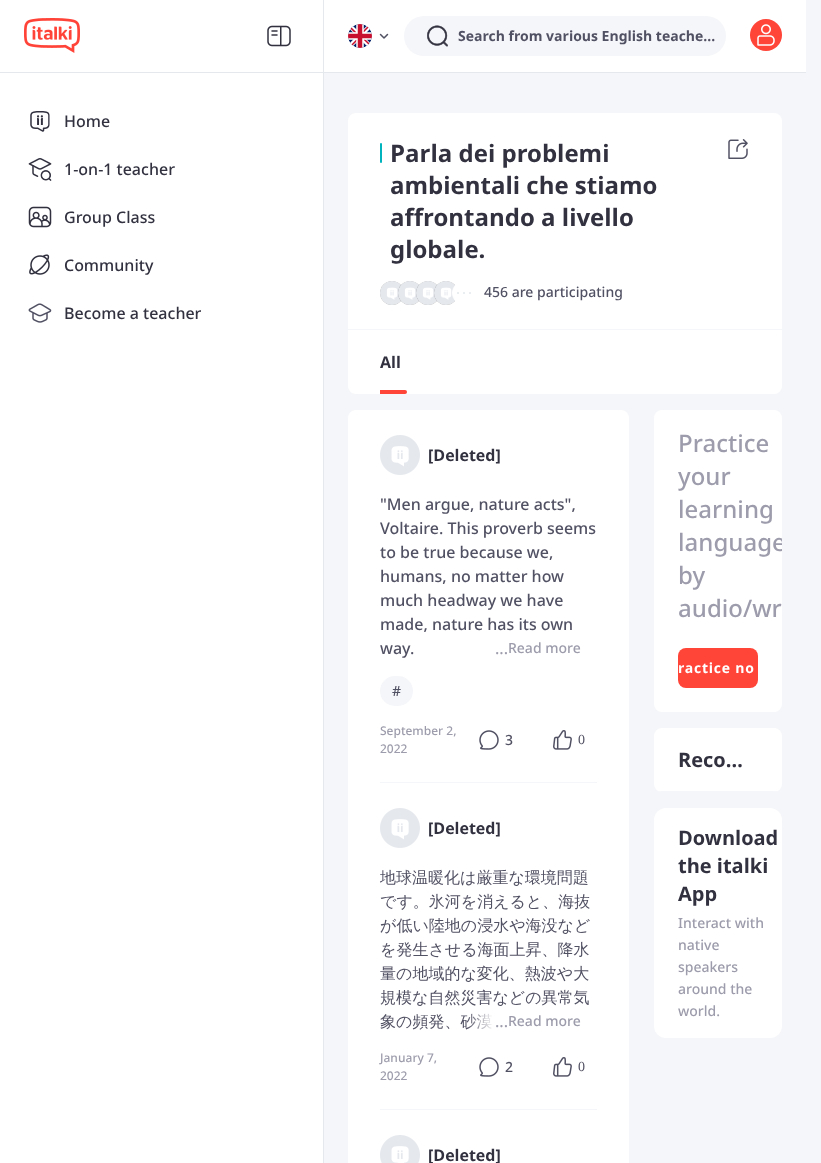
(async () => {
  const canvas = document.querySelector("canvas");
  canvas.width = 821;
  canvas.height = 1163;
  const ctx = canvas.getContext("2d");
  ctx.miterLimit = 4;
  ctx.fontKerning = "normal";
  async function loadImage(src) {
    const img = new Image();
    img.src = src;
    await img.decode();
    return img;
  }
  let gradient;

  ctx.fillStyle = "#f5f6f9";
  ctx.fillRect(0, 0, 821, 1163);
  for (const [x, y, w, h, color] of [
    [0, 0, 323, 1163, "#ffffff"],
    [323, 0, 1, 1163, "#e5e8ed"],
    [0, 72, 323, 1, "#e5e8ed"],
  ]) {
    ctx.fillStyle = color;
    ctx.fillRect(x, y, w, h);
  }
  ctx.drawImage(await loadImage("img/1.png"), 24, 18, 56, 35);
  ctx.drawImage(await loadImage("img/2.png"), 267, 25, 24, 22);
  ctx.drawImage(await loadImage("img/3.png"), 30, 111, 20, 21);
  ctx.drawImage(await loadImage("img/4.png"), 28, 158, 24, 23);
  ctx.drawImage(await loadImage("img/5.png"), 28, 206, 24, 22);
  ctx.drawImage(await loadImage("img/6.png"), 29, 254, 21, 21);
  ctx.drawImage(await loadImage("img/7.png"), 28, 303, 24, 20);
  ctx.fillStyle = "#ffffff";
  ctx.fillRect(324, 0, 482, 72);
  ctx.fillStyle = "#e5e8ed";
  ctx.fillRect(324, 72, 482, 1);
  ctx.fillStyle = "#f5f6f9";
  ctx.beginPath();
  ctx.arc(360, 36, 12, 0, Math.PI * 2);
  ctx.fill();
  ctx.drawImage(await loadImage("img/8.png"), 348, 24, 24, 24);
  ctx.drawImage(await loadImage("img/9.png"), 379, 33, 10, 6);
  ctx.beginPath();
  ctx.roundRect(404, 16, 322, 40, 20);
  ctx.fill();
  ctx.drawImage(await loadImage("img/10.png"), 427, 25, 21, 22);
  ctx.fillStyle = "#ff4438";
  ctx.beginPath();
  ctx.arc(766, 35, 16, 0, Math.PI * 2);
  ctx.fill();
  ctx.drawImage(await loadImage("img/11.png"), 757, 24, 18, 22);
  ctx.fillStyle = "#ffffff";
  ctx.beginPath();
  ctx.roundRect(348, 113, 434, 281, 8);
  ctx.fill();
  ctx.fillStyle = "#f5f6f9";
  ctx.fillRect(348, 329, 434, 1);
  ctx.fillStyle = "#00b3bd";
  ctx.beginPath();
  ctx.roundRect(380, 143, 2, 20, 1);
  ctx.fill();
  ctx.fillStyle = "#bfbfbf";
  ctx.beginPath();
  ctx.arc(392, 293, 12, 0, Math.PI * 2);
  ctx.fill();
  ctx.drawImage(await loadImage("img/12.png"), 380, 281, 22, 24);
  ctx.fillStyle = "rgba(0, 0, 0, 0.25)";
  ctx.beginPath();
  ctx.arc(410, 293, 12, 0, Math.PI * 2);
  ctx.fill();
  ctx.drawImage(await loadImage("img/13.png"), 398, 281, 22, 24);
  ctx.beginPath();
  ctx.arc(428, 293, 12, 0, Math.PI * 2);
  ctx.fill();
  ctx.drawImage(await loadImage("img/14.png"), 416, 281, 22, 24);
  ctx.beginPath();
  ctx.arc(446, 293, 12, 0, Math.PI * 2);
  ctx.fill();
  ctx.drawImage(await loadImage("img/14.png"), 434, 281, 22, 24);
  ctx.fillStyle = "#ffffff";
  ctx.beginPath();
  ctx.arc(464, 293, 11.5, 0, Math.PI * 2);
  ctx.fill();
  ctx.strokeStyle = "#ffffff";
  ctx.stroke();
  ctx.fillStyle = "#e5e8ed";
  ctx.beginPath();
  ctx.arc(458, 293, 1, 0, Math.PI * 2);
  ctx.fill();
  ctx.beginPath();
  ctx.arc(464, 293, 1, 0, Math.PI * 2);
  ctx.fill();
  ctx.beginPath();
  ctx.arc(470, 293, 1, 0, Math.PI * 2);
  ctx.fill();
  ctx.drawImage(await loadImage("img/15.png"), 728, 139, 20, 20);
  ctx.fillStyle = "#ff4438";
  ctx.beginPath();
  ctx.roundRect(380, 390, 27, 4, [0, 2, 2, 0]);
  ctx.fill();
  ctx.fillStyle = "#ffffff";
  ctx.beginPath();
  ctx.roundRect(348, 410, 281, 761, 8);
  ctx.fill();
  ctx.drawImage(await loadImage("img/16.png"), 380, 435, 40, 40);
  ctx.fillStyle = "#f5f6f9";
  ctx.beginPath();
  ctx.roundRect(380, 676, 33, 30, 15);
  ctx.fill();
  ctx.drawImage(await loadImage("img/17.png"), 479, 730, 20, 20);
  ctx.drawImage(await loadImage("img/18.png"), 553, 730, 19, 20);
  ctx.fillRect(380, 782, 217, 1);
  ctx.drawImage(await loadImage("img/16.png"), 380, 808, 40, 40);
  ctx.drawImage(await loadImage("img/17.png"), 479, 1057, 20, 20);
  ctx.drawImage(await loadImage("img/18.png"), 553, 1057, 19, 20);
  ctx.fillRect(380, 1109, 217, 1);
  ctx.drawImage(await loadImage("img/19.png"), 380, 1135, 40, 28);
  ctx.fillStyle = "#ffffff";
  ctx.beginPath();
  ctx.roundRect(654, 410, 128, 302, 8);
  ctx.fill();
  ctx.fillStyle = "#ff4438";
  ctx.beginPath();
  ctx.roundRect(678, 648, 80, 40, 8);
  ctx.fill();
  ctx.fillStyle = "#ffffff";
  ctx.beginPath();
  ctx.roundRect(654, 728, 128, 64, 8);
  ctx.fill();
  ctx.save();
  ctx.beginPath();
  ctx.roundRect(654, 728, 128, 64, 8);
  ctx.clip();
  ctx.fillStyle = "#f5f6f9";
  ctx.fillRect(654, 791, 128, 1);
  ctx.restore();
  ctx.beginPath();
  ctx.roundRect(654, 808, 128, 230, 12);
  ctx.fill();
  ctx.font = "500 16px Noto Sans";
  ctx.fillStyle = "#313140";
  for (const [text, x, y] of [
    ["Home", 64, 127],
    ["1-on-1 teacher", 64, 175],
    ["Group Class", 64, 223],
    ["Community", 64, 271],
    ["Become a teacher", 64, 319],
  ]) {
    ctx.fillText(text, x, y);
  }
  ctx.font = "bold 14px Noto Sans";
  ctx.fillStyle = "#515164";
  ctx.fillText("Search from various English teache…", 458, 41);
  ctx.font = "bold 24px Noto Sans";
  ctx.fillStyle = "#313140";
  for (const [text, x, y] of [
    ["Parla dei problemi", 390, 162],
    ["ambientali che stiamo", 390, 194],
    ["affrontando a livello", 390, 226],
    ["globale.", 390, 258],
  ]) {
    ctx.fillText(text, x, y);
  }
  ctx.font = "500 14px Noto Sans";
  ctx.fillStyle = "#515164";
  ctx.fillText("456 are participating", 484, 297);
  ctx.font = "bold 16px Noto Sans";
  ctx.fillStyle = "#313140";
  ctx.fillText("All", 380, 368);
  ctx.fillText("[Deleted]", 428, 461);
  ctx.font = "500 16px Noto Sans";
  ctx.fillStyle = "#515164";
  for (const [text, x, y] of [
    ["\"Men argue, nature acts\",", 380, 510],
    ["Voltaire. This proverb seems", 380, 534],
    ["to be true because we,", 380, 558],
    ["humans, no matter how", 380, 582],
    ["much headway we have", 380, 606],
    ["made, nature has its own", 380, 630],
    ["way.", 380, 654],
  ]) {
    ctx.fillText(text, x, y);
  }
  ctx.fillStyle = "#9c9cac";
  ctx.fillText("...", 495, 654);
  ctx.font = "500 14px Noto Sans";
  ctx.fillText("Read more", 508, 653);
  ctx.fillStyle = "#515164";
  ctx.fillText("#", 392, 696);
  ctx.font = "500 12px Noto Sans";
  ctx.fillStyle = "#9c9cac";
  ctx.fillText("September 2,", 380, 735);
  ctx.fillText("2022", 380, 753);
  ctx.font = "500 14px Noto Sans";
  ctx.fillStyle = "#515164";
  ctx.fillText("3", 505, 745);
  ctx.font = "14px Liberation Serif";
  ctx.fillText("0", 578, 744);
  ctx.font = "bold 16px Noto Sans";
  ctx.fillStyle = "#313140";
  ctx.fillText("[Deleted]", 428, 834);
  ctx.font = "500 16px WenQuanYi Zen Hei";
  ctx.fillStyle = "#515164";
  for (const [text, x, y] of [
    ["地球温暖化は厳重な環境問題", 380, 883],
    ["です。氷河を消えると、海抜", 380, 907],
    ["が低い陸地の浸水や海没など", 380, 931],
    ["を発生させる海面上昇、降水", 380, 955],
    ["量の地域的な変化、熱波や大", 380, 979],
    ["規模な自然災害などの異常気", 380, 1003],
    ["象の頻発、砂漠", 380, 1027],
  ]) {
    ctx.fillText(text, x, y);
  }
  gradient = ctx.createLinearGradient(467, 1021, 508, 1021);
  gradient.addColorStop(0, "rgba(255, 255, 255, 0)");
  gradient.addColorStop(0.66, "#ffffff");
  ctx.fillStyle = gradient;
  ctx.fillRect(468, 1013, 24, 16);
  ctx.font = "500 16px Noto Sans";
  ctx.fillStyle = "#9c9cac";
  ctx.fillText("...", 495, 1027);
  ctx.font = "500 14px Noto Sans";
  ctx.fillText("Read more", 508, 1026);
  ctx.font = "500 12px Noto Sans";
  ctx.fillText("January 7,", 380, 1062);
  ctx.fillText("2022", 380, 1080);
  ctx.font = "500 14px Noto Sans";
  ctx.fillStyle = "#515164";
  ctx.fillText("2", 505, 1072);
  ctx.font = "14px Liberation Serif";
  ctx.fillText("0", 578, 1071);
  ctx.font = "bold 16px Noto Sans";
  ctx.fillStyle = "#313140";
  ctx.fillText("[Deleted]", 428, 1161);
  ctx.font = "500 24px Noto Sans";
  ctx.fillStyle = "#9c9cac";
  for (const [text, x, y] of [
    ["Practice", 678, 452],
    ["your", 678, 485],
    ["learning", 678, 518],
  ]) {
    ctx.fillText(text, x, y);
  }
  ctx.save();
  ctx.beginPath();
  ctx.roundRect(654, 410, 128, 302, 8);
  ctx.clip();
  ctx.fillText("language", 678, 551);
  ctx.restore();
  ctx.fillText("by", 678, 584);
  ctx.fillText("audio/wr", 678, 617);
  ctx.letterSpacing = "0.75px";
  ctx.font = "bold 14px Noto Sans";
  ctx.fillStyle = "#ffffff";
  ctx.fillText("ractice no", 678, 673);
  ctx.letterSpacing = "0px";
  ctx.font = "bold 20px Noto Sans";
  ctx.fillStyle = "#313140";
  for (const [text, x, y] of [
    ["Reco…", 678, 767],
    ["Download", 678, 845],
    ["the italki", 678, 873],
    ["App", 678, 901],
  ]) {
    ctx.fillText(text, x, y);
  }
  ctx.font = "500 14px Noto Sans";
  ctx.fillStyle = "#9c9cac";
  for (const [text, x, y] of [
    ["Interact with", 678, 928],
    ["native", 678, 950],
    ["speakers", 678, 972],
    ["around the", 678, 994],
    ["world.", 678, 1016],
  ]) {
    ctx.fillText(text, x, y);
  }
})();
